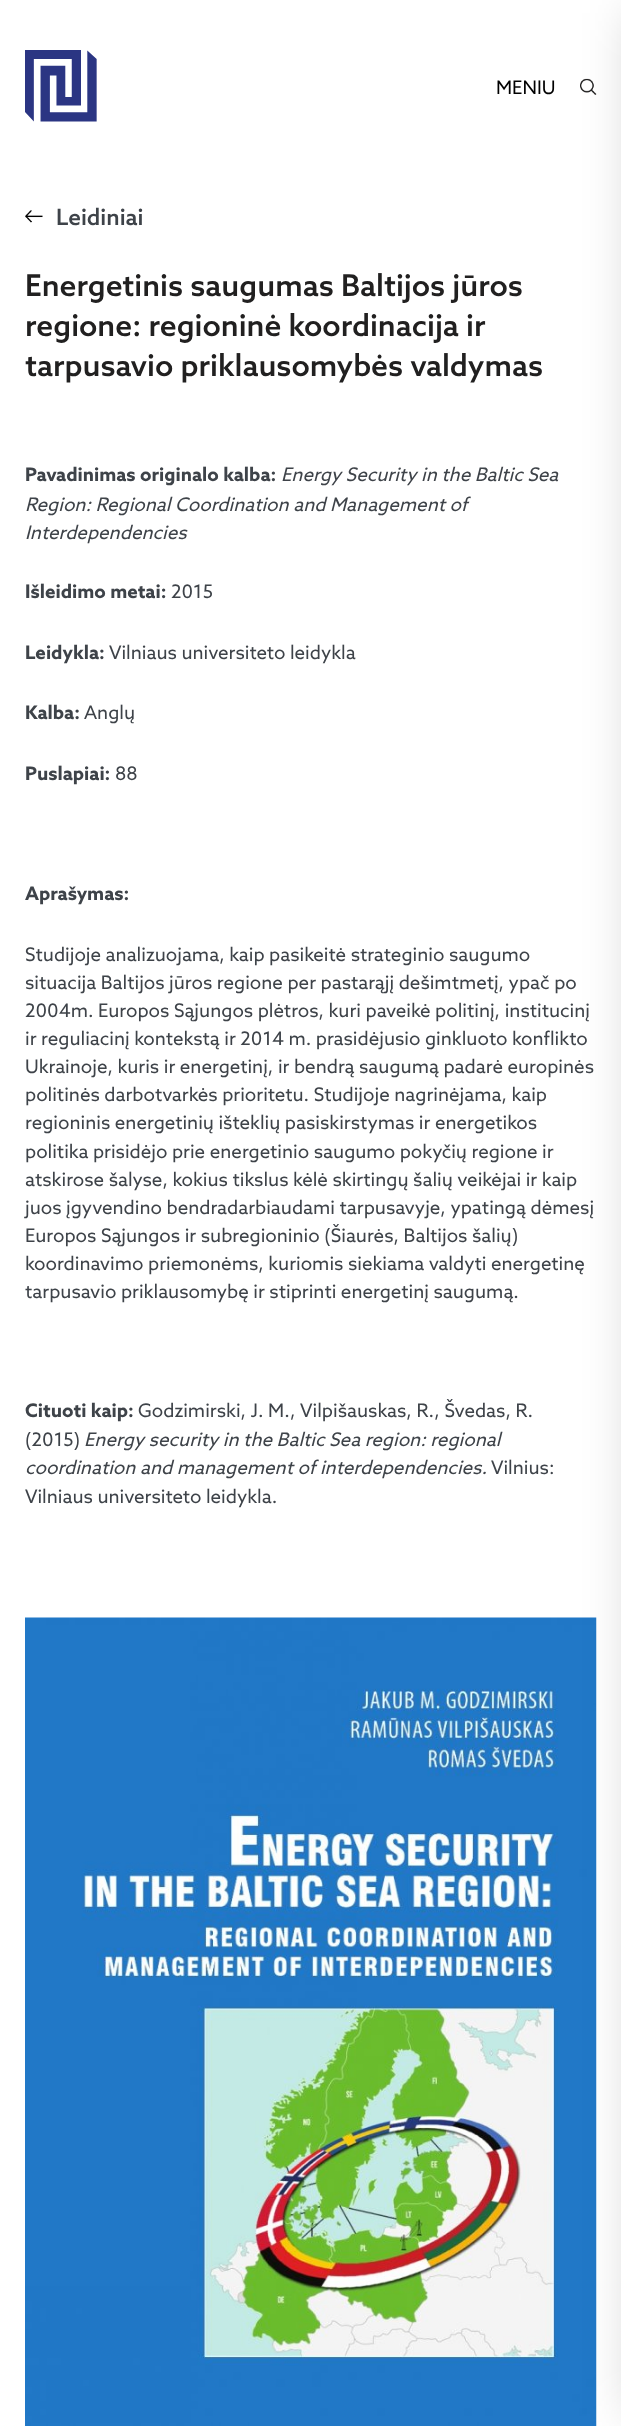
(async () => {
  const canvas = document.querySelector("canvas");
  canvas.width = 621;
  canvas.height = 2426;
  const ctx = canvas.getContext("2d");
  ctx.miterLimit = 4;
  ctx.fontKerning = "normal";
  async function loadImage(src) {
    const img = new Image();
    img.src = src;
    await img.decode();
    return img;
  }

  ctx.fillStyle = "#ffffff";
  ctx.fillRect(0, 0, 621, 2426);
  ctx.drawImage(await loadImage("img/1.png"), 25, 50, 72, 72);
  ctx.drawImage(await loadImage("img/2.png"), 580, 78, 17, 17);
  ctx.drawImage(await loadImage("img/4.png"), 25, 1617, 572, 809);
  ctx.fillStyle = "rgba(0, 0, 0, 0.2)";
  ctx.filter = "blur(25px)";
  ctx.beginPath();
  ctx.rect(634, 13, 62, 2401);
  ctx.fill();
  ctx.filter = "none";
  ctx.drawImage(await loadImage("img/3.png"), 25, 210, 18, 13);
  ctx.font = "18.75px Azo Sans";
  ctx.fillStyle = "#000000";
  ctx.fillText("MENIU", 496, 94);
  ctx.font = "500 22.5px Azo Sans";
  ctx.fillStyle = "#3e4349";
  ctx.fillText("Leidiniai", 56, 225);
  ctx.font = "500 30px Azo Sans";
  ctx.fillStyle = "#212020";
  for (const [text, x, y] of [
    ["Energetinis saugumas Baltijos jūros", 25, 296],
    ["regione: regioninė koordinacija ir", 25, 336],
    ["tarpusavio priklausomybės valdymas", 25, 376],
  ]) {
    ctx.fillText(text, x, y);
  }
  ctx.font = "bold 18.75px Azo Sans";
  ctx.fillStyle = "#3e4349";
  ctx.fillText("Pavadinimas originalo kalba:", 25, 481);
  ctx.font = "italic 18.75px Azo Sans";
  for (const [text, x, y] of [
    ["Energy Security in the Baltic Sea", 281, 481],
    ["Region: Regional Coordination and Management of", 25, 511],
    ["Interdependencies", 25, 539],
  ]) {
    ctx.fillText(text, x, y);
  }
  ctx.font = "bold 18.75px Azo Sans";
  ctx.fillText("Išleidimo metai:", 25, 598);
  ctx.font = "18.75px Azo Sans";
  ctx.fillText("2015", 171, 598);
  ctx.font = "bold 18.75px Azo Sans";
  ctx.fillText("Leidykla:", 25, 659);
  ctx.font = "18.75px Azo Sans";
  ctx.fillText("Vilniaus universiteto leidykla", 109, 659);
  ctx.font = "bold 18.75px Azo Sans";
  ctx.fillText("Kalba:", 25, 719);
  ctx.font = "18.75px Azo Sans";
  ctx.fillText("Anglų", 84, 719);
  ctx.font = "bold 18.75px Azo Sans";
  ctx.fillText("Puslapiai:", 25, 780);
  ctx.font = "18.75px Azo Sans";
  ctx.fillText("88", 115, 780);
  ctx.font = "bold 18.75px Azo Sans";
  ctx.fillText("Aprašymas:", 25, 900);
  ctx.font = "18.75px Azo Sans";
  for (const [text, x, y] of [
    ["Studijoje analizuojama, kaip pasikeitė strateginio saugumo", 25, 961],
    ["situacija Baltijos jūros regione per pastarąjį dešimtmetį, ypač po", 25, 989],
    ["2004m. Europos Sąjungos plėtros, kuri paveikė politinį, institucinį", 25, 1017],
    ["ir reguliacinį kontekstą ir 2014 m. prasidėjusio ginkluoto konflikto", 25, 1045],
    ["Ukrainoje, kuris ir energetinį, ir bendrą saugumą padarė europinės", 25, 1073],
    ["politinės darbotvarkės prioritetu. Studijoje nagrinėjama, kaip", 25, 1101],
    ["regioninis energetinių išteklių pasiskirstymas ir energetikos", 25, 1129],
    ["politika prisidėjo prie energetinio saugumo pokyčių regione ir", 25, 1158],
    ["atskirose šalyse, kokius tikslus kėlė skirtingų šalių veikėjai ir kaip", 25, 1186],
    ["juos įgyvendino bendradarbiaudami tarpusavyje, ypatingą dėmesį", 25, 1214],
    ["Europos Sąjungos ir subregioninio (Šiaurės, Baltijos šalių)", 25, 1242],
    ["koordinavimo priemonėms, kuriomis siekiama valdyti energetinę", 25, 1270],
    ["tarpusavio priklausomybę ir stiprinti energetinį saugumą.", 25, 1298],
  ]) {
    ctx.fillText(text, x, y);
  }
  ctx.font = "bold 18.75px Azo Sans";
  ctx.fillText("Cituoti kaip:", 25, 1417);
  ctx.font = "18.75px Azo Sans";
  ctx.fillText("Godzimirski, J. M., Vilpišauskas, R., Švedas, R.", 138, 1417);
  ctx.fillText("(2015)", 25, 1446);
  ctx.font = "italic 18.75px Azo Sans";
  ctx.fillText("Energy security in the Baltic Sea region: regional", 84, 1446);
  ctx.fillText("coordination and management of interdependencies.", 25, 1474);
  ctx.font = "18.75px Azo Sans";
  ctx.fillText("Vilnius:", 491, 1474);
  ctx.fillText("Vilniaus universiteto leidykla.", 25, 1503);
})();
